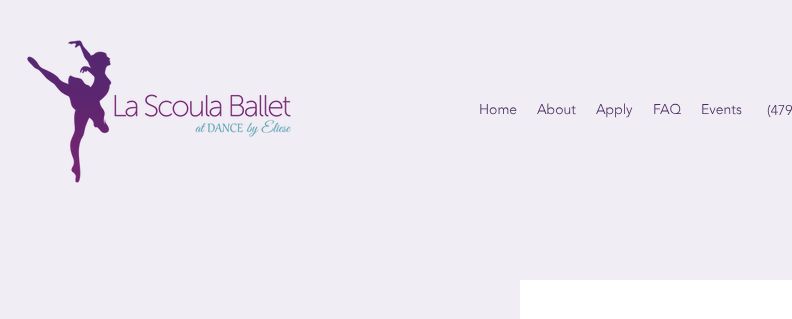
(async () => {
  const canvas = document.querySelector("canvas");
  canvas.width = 792;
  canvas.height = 319;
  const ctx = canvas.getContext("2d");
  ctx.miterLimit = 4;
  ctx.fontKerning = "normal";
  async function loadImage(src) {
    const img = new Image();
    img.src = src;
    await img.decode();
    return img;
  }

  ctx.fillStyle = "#f1edf5";
  ctx.fillRect(0, 0, 792, 319);
  ctx.drawImage(await loadImage("img/1.png"), 27, 40, 264, 143);
  ctx.fillStyle = "#ffffff";
  ctx.fillRect(520, 280, 272, 39);
  ctx.font = "300 14px 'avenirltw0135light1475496'";
  ctx.fillStyle = "#4b2d60";
  for (const [text, x, y] of [
    ["Home", 479, 114],
    ["About", 537, 114],
    ["Apply", 596, 114],
    ["FAQ", 653, 114],
    ["Events", 701, 114],
    ["(479", 767, 115],
  ]) {
    ctx.fillText(text, x, y);
  }
})();
